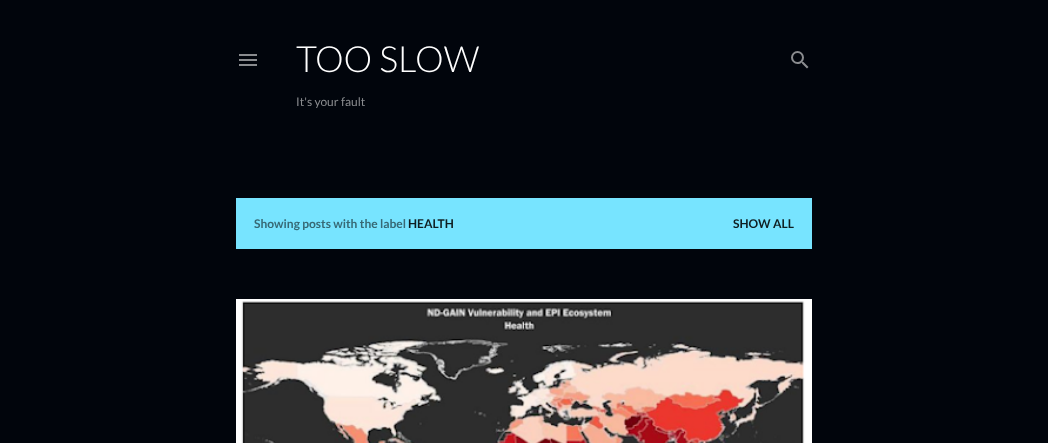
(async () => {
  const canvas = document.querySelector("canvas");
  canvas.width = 1048;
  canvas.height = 443;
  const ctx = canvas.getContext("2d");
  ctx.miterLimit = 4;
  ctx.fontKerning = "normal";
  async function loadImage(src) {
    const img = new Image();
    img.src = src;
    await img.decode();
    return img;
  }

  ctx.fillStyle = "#01050c";
  ctx.fillRect(0, 0, 1048, 443);
  ctx.drawImage(await loadImage("img/1.png"), 239, 54, 18, 12);
  ctx.drawImage(await loadImage("img/2.png"), 791, 51, 18, 18);
  ctx.fillStyle = "#77e4ff";
  ctx.fillRect(236, 198, 576, 51);
  ctx.drawImage(await loadImage("img/3.png"), 236, 299, 576, 144);
  ctx.font = "300 36px Lato";
  ctx.fillStyle = "#ffffff";
  ctx.fillText("TOO SLOW", 296, 72);
  ctx.font = "12px Lato";
  ctx.fillStyle = "#8a8c8f";
  ctx.fillText("It's your fault", 296, 106);
  ctx.font = "bold 12px Lato";
  ctx.fillStyle = "#376975";
  ctx.fillText("Showing posts with the label", 254, 228);
  ctx.fillStyle = "#0f1e21";
  ctx.fillText("HEALTH", 408, 228);
  ctx.fillText("SHOW ALL", 733, 228);
})();
